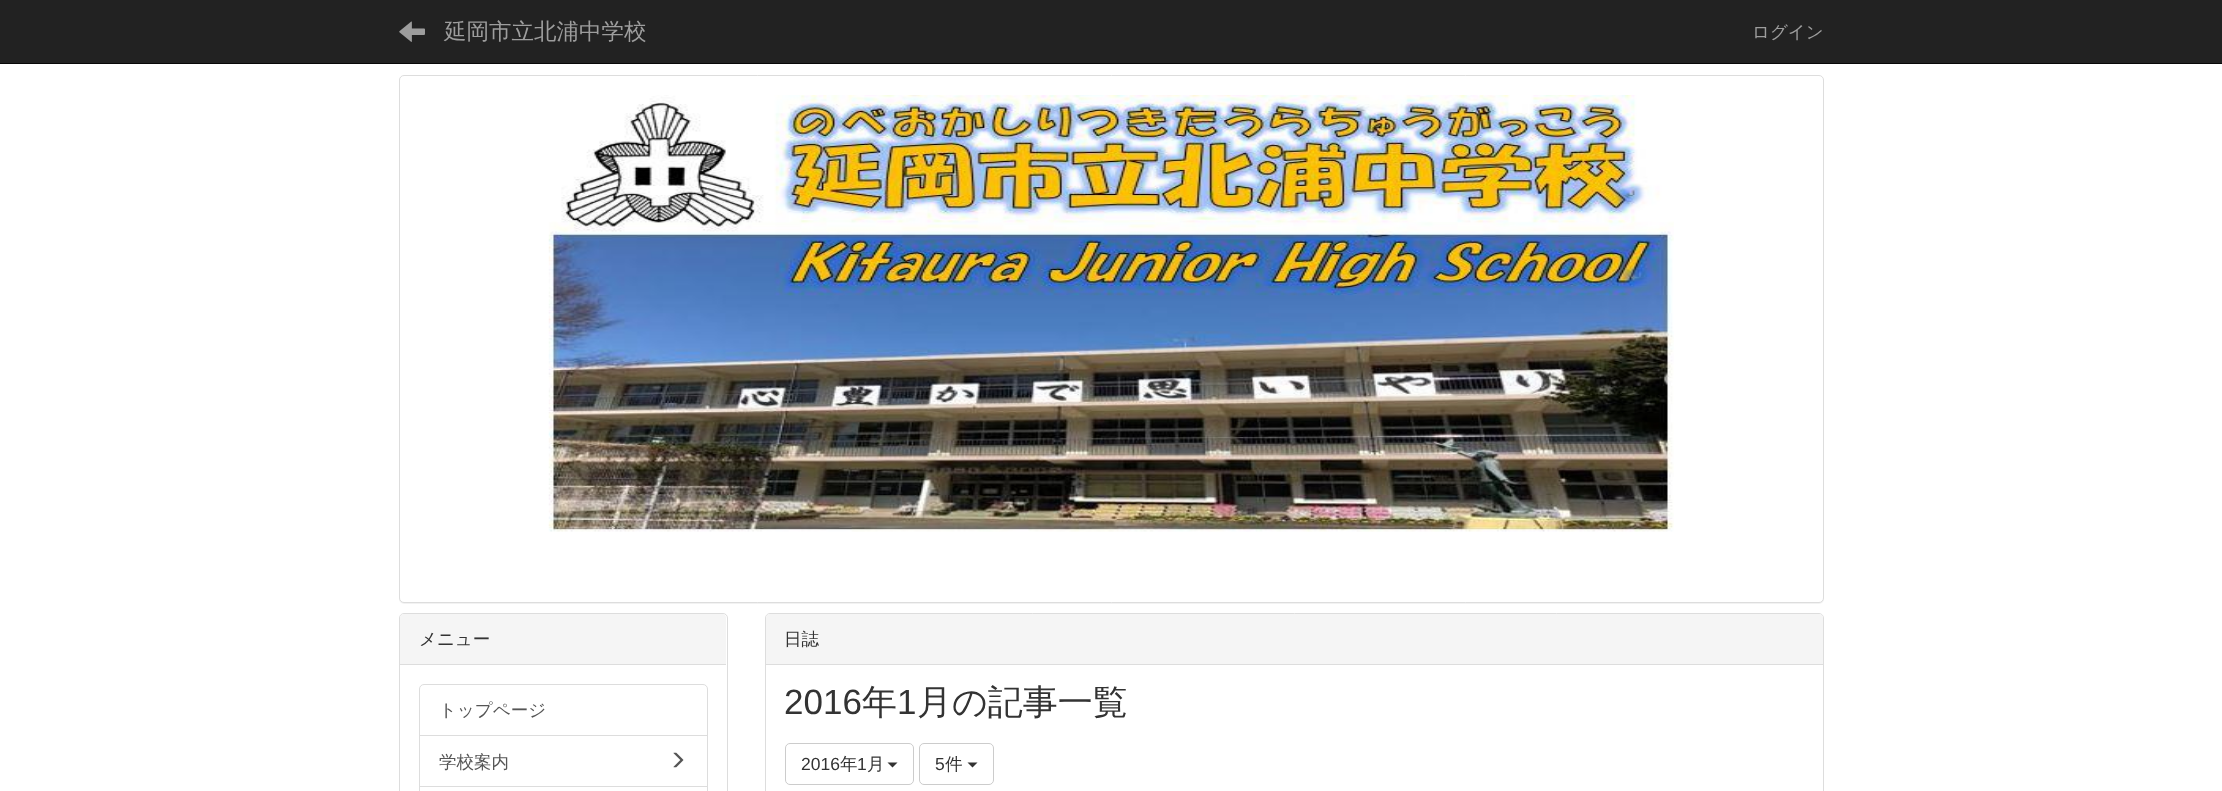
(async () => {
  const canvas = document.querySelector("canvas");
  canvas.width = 2222;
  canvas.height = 791;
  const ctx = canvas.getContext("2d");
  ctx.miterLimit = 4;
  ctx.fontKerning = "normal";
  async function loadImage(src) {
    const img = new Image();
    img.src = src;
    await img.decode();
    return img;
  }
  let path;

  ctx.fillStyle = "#ffffff";
  ctx.fillRect(0, 0, 2222, 791);
  ctx.fillStyle = "#222222";
  ctx.fillRect(0, 0, 2222, 63);
  ctx.fillStyle = "#080808";
  ctx.fillRect(0, 63, 2222, 1);
  ctx.drawImage(await loadImage("img/1.png"), 399, 21, 26, 21);
  ctx.fillStyle = "rgba(0, 0, 0, 0.05)";
  ctx.filter = "blur(0.5px)";
  ctx.beginPath();
  ctx.roundRect(399, 76, 1425, 528, 5);
  ctx.fill();
  ctx.filter = "none";
  ctx.fillStyle = "#ffffff";
  ctx.beginPath();
  ctx.roundRect(399.5, 75.5, 1424, 527, 4.5);
  ctx.fill();
  ctx.strokeStyle = "#dddddd";
  ctx.stroke();
  ctx.drawImage(await loadImage("img/2.png"), 548, 95, 1126, 437);
  ctx.beginPath();
  ctx.roundRect(399.5, 613.5, 328, 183, 4.5);
  ctx.stroke();
  ctx.fillStyle = "#f5f5f5";
  ctx.beginPath();
  ctx.roundRect(400, 614, 326, 51, [4, 4, 0, 0]);
  ctx.fill();
  ctx.fillStyle = "#dddddd";
  ctx.fillRect(400, 664, 326, 1);
  ctx.beginPath();
  ctx.roundRect(419.5, 684.5, 288, 51, [4.5, 4.5, 0, 0]);
  ctx.stroke();
  ctx.strokeRect(419.5, 735.5, 288, 52);
  ctx.drawImage(await loadImage("img/3.png"), 673, 752, 11, 16);
  ctx.fillStyle = "#ffffff";
  ctx.fillRect(419, 787, 289, 1);
  ctx.strokeRect(419.5, 786.5, 288, 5);
  ctx.beginPath();
  ctx.roundRect(765.5, 613.5, 1058, 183, 4.5);
  ctx.stroke();
  ctx.fillStyle = "#f5f5f5";
  ctx.beginPath();
  ctx.roundRect(766, 614, 1057, 51, [4, 4, 0, 0]);
  ctx.fill();
  ctx.fillStyle = "#dddddd";
  ctx.fillRect(766, 664, 1057, 1);
  ctx.beginPath();
  ctx.roundRect(785.5, 743.5, 128, 41, 4.5);
  ctx.strokeStyle = "#cccccc";
  ctx.stroke();
  ctx.fillStyle = "#333333";
  path = new Path2D("M887.5 762.5H897.5L892.5 767.5Z");
  ctx.fill(path);
  ctx.beginPath();
  ctx.roundRect(919.5, 743.5, 74, 41, 4.5);
  ctx.stroke();
  path = new Path2D("M967.5 762.5H977.5L972.5 767.5Z");
  ctx.fill(path);
  ctx.font = "500 22.5px WenQuanYi Zen Hei";
  ctx.fillStyle = "#9d9d9d";
  ctx.fillText("延岡市立北浦中学校", 444, 39);
  ctx.font = "500 17.5px WenQuanYi Zen Hei";
  ctx.fillText("ログイン", 1752, 38);
  ctx.fillStyle = "#333333";
  ctx.fillText("メニュー", 419, 645);
  ctx.fillStyle = "#555555";
  ctx.fillText("トップページ", 439, 716);
  ctx.fillText("学校案内", 439, 768);
  ctx.fillStyle = "#333333";
  ctx.fillText("日誌", 784, 645);
  ctx.font = "35px Liberation Sans";
  ctx.fillText("2016", 784, 714);
  ctx.font = "500 35px WenQuanYi Zen Hei";
  ctx.fillText("年", 862, 714);
  ctx.font = "35px Liberation Sans";
  ctx.fillText("1", 897, 714);
  ctx.font = "500 35px WenQuanYi Zen Hei";
  ctx.fillText("月の記事一覧", 917, 714);
  ctx.font = "17.5px Liberation Sans";
  ctx.fillText("2016", 801, 770);
  ctx.font = "500 17.5px WenQuanYi Zen Hei";
  ctx.fillText("年", 840, 770);
  ctx.font = "17.5px Liberation Sans";
  ctx.fillText("1", 857, 770);
  ctx.font = "500 17.5px WenQuanYi Zen Hei";
  ctx.fillText("月", 867, 770);
  ctx.font = "17.5px Liberation Sans";
  ctx.fillText("5", 935, 770);
  ctx.font = "500 17.5px WenQuanYi Zen Hei";
  ctx.fillText("件", 945, 770);
})();
